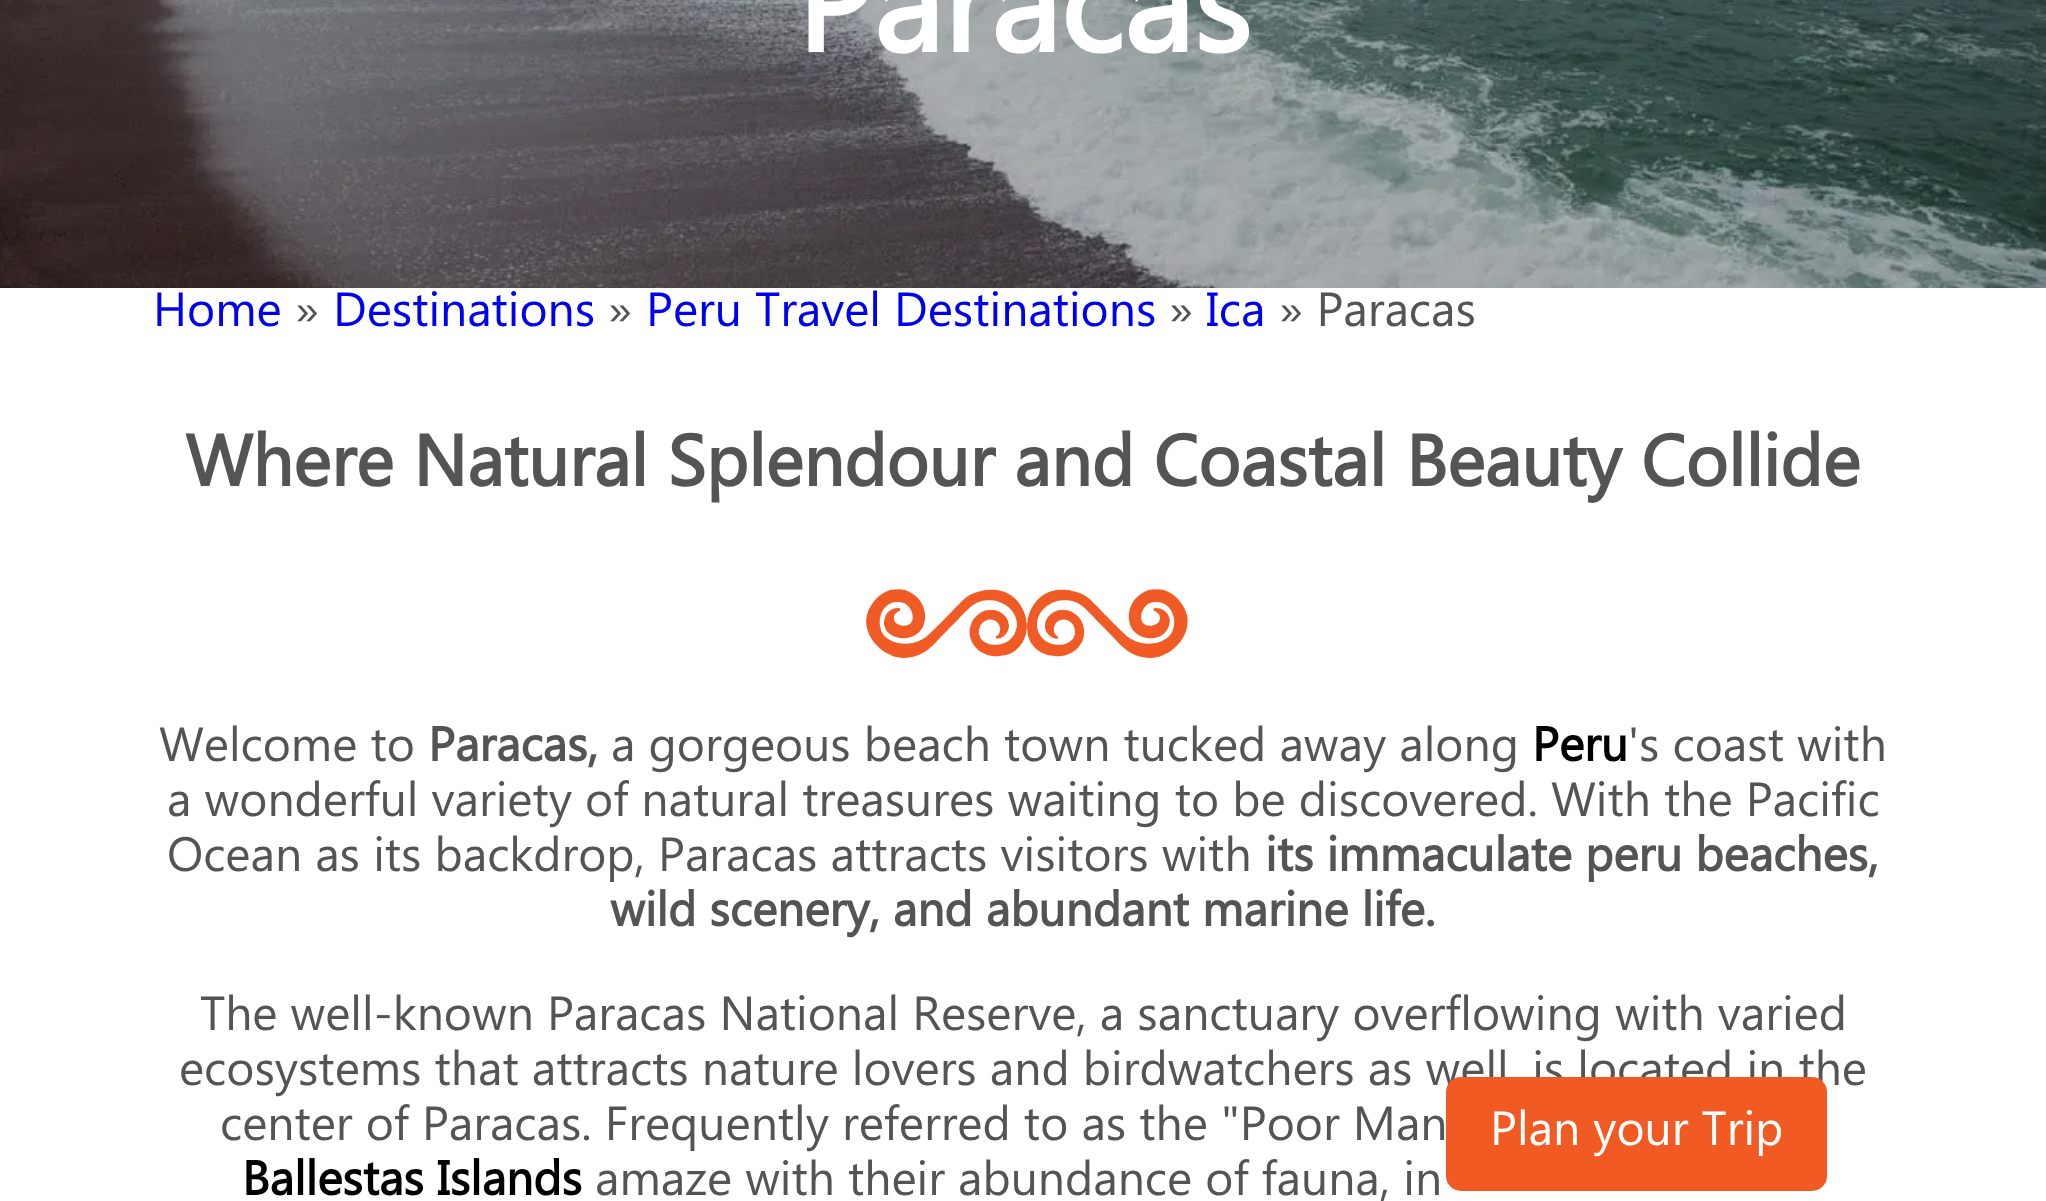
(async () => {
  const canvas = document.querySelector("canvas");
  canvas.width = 2046;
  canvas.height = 1201;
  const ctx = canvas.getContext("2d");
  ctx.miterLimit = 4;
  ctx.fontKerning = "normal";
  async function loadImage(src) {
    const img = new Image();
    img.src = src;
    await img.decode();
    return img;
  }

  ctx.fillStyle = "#ffffff";
  ctx.fillRect(0, 0, 2046, 1201);
  ctx.drawImage(await loadImage("img/1.png"), 0, 0, 2046, 288);
  ctx.drawImage(await loadImage("img/2.png"), 866, 588, 322, 71);
  ctx.font = "bold 137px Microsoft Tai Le";
  ctx.fillText("Paracas", 796, 52);
  ctx.font = "48px Microsoft Tai Le";
  ctx.fillStyle = "#0000ee";
  ctx.fillText("Home", 153, 326);
  ctx.fillStyle = "#545454";
  ctx.fillText("»", 295, 326);
  ctx.fillStyle = "#0000ee";
  ctx.fillText("Destinations", 333, 326);
  ctx.fillStyle = "#545454";
  ctx.fillText("»", 608, 326);
  ctx.fillStyle = "#0000ee";
  ctx.fillText("Peru Travel Destinations", 646, 326);
  ctx.fillStyle = "#545454";
  ctx.fillText("»", 1169, 326);
  ctx.fillStyle = "#0000ee";
  ctx.fillText("Ica", 1206, 326);
  ctx.fillStyle = "#545454";
  ctx.fillText("» Paracas", 1279, 326);
  ctx.font = "bold 72px Microsoft Tai Le";
  ctx.fillText("Where Natural Splendour and Coastal Beauty Collide", 185, 486);
  ctx.font = "48px Microsoft Tai Le";
  ctx.fillText("Welcome to", 159, 761);
  ctx.font = "bold 48px Microsoft Tai Le";
  ctx.fillText("Paracas,", 428, 761);
  ctx.font = "48px Microsoft Tai Le";
  ctx.fillText("a gorgeous beach town tucked away along", 611, 761);
  ctx.font = "bold 48px Microsoft Tai Le";
  ctx.fillStyle = "#000000";
  ctx.fillText("Peru", 1532, 761);
  ctx.font = "48px Microsoft Tai Le";
  ctx.fillStyle = "#545454";
  for (const [text, x, y] of [
    ["'s coast with", 1628, 761],
    ["a wonderful variety of natural treasures waiting to be discovered. With the Pacific", 167, 816],
    ["Ocean as its backdrop, Paracas attracts visitors with", 167, 871],
  ]) {
    ctx.fillText(text, x, y);
  }
  ctx.font = "bold 48px Microsoft Tai Le";
  ctx.fillText("its immaculate peru beaches,", 1265, 871);
  ctx.fillText("wild scenery, and abundant marine life.", 610, 926);
  ctx.font = "48px Microsoft Tai Le";
  for (const [text, x, y] of [
    ["The well-known Paracas National Reserve, a sanctuary overflowing with varied", 200, 1030],
    ["ecosystems that attracts nature lovers and birdwatchers as well, is located in the", 179, 1085],
    ["center of Paracas. Frequently referred to as the \"Poor Man", 220, 1140],
  ]) {
    ctx.fillText(text, x, y);
  }
  ctx.font = "bold 48px Microsoft Tai Le";
  ctx.fillStyle = "#000000";
  ctx.fillText("Ballestas Islands", 242, 1195);
  ctx.font = "48px Microsoft Tai Le";
  ctx.fillStyle = "#545454";
  ctx.fillText("amaze with their abundance of fauna, in", 595, 1195);
  ctx.fillStyle = "#f15a23";
  ctx.beginPath();
  ctx.roundRect(1446, 1077, 381, 114, 15);
  ctx.fill();
  ctx.fillStyle = "#ffffff";
  ctx.fillText("Plan your Trip", 1490, 1145);
})();
